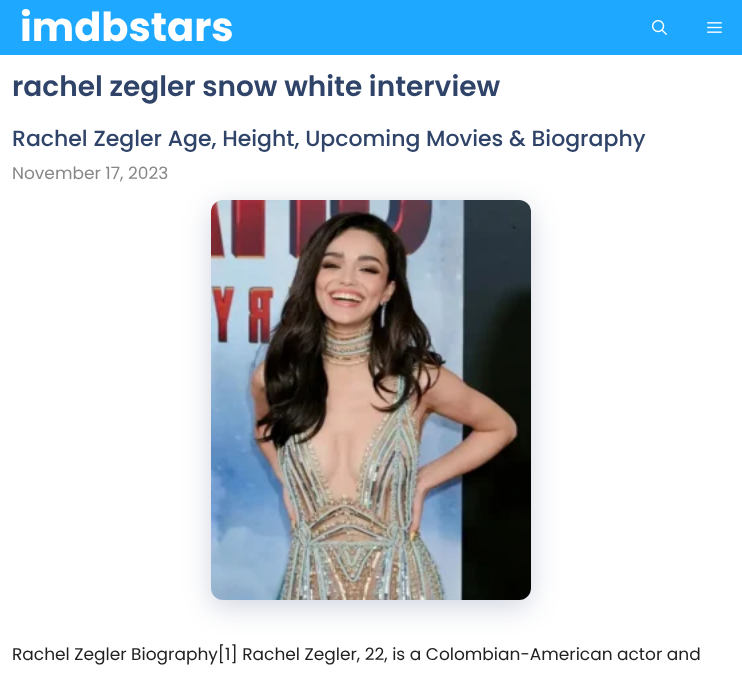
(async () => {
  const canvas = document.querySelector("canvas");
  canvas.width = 742;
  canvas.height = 678;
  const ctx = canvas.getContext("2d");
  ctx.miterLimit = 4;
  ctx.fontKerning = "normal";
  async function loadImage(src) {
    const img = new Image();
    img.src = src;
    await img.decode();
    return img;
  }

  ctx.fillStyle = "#ffffff";
  ctx.fillRect(0, 0, 742, 678);
  ctx.fillStyle = "#1ea8ff";
  ctx.fillRect(0, 0, 742, 55);
  ctx.drawImage(await loadImage("img/1.png"), 652, 20, 15, 15);
  ctx.drawImage(await loadImage("img/2.png"), 707, 22, 15, 11);
  ctx.fillStyle = "rgba(23, 43, 99, 0.2)";
  ctx.filter = "blur(14px)";
  ctx.beginPath();
  ctx.roundRect(211, 207, 320, 400, 12);
  ctx.fill();
  ctx.filter = "none";
  ctx.drawImage(await loadImage("img/3.png"), 211, 200, 320, 400);
  ctx.font = "bold 40px Poppins";
  ctx.fillStyle = "#ffffff";
  ctx.fillText("imdbstars", 20, 41);
  ctx.font = "600 28px Poppins";
  ctx.fillStyle = "#2f4468";
  ctx.fillText("rachel zegler snow white interview", 12, 96);
  ctx.font = "500 22px Poppins";
  ctx.fillText("Rachel Zegler Age, Height, Upcoming Movies & Biography", 12, 146);
  ctx.font = "17px Poppins";
  ctx.fillStyle = "#878787";
  ctx.fillText("November 17, 2023", 12, 179);
  ctx.fillStyle = "#212121";
  ctx.fillText("Rachel Zegler Biography[1] Rachel Zegler, 22, is a Colombian-American actor and", 12, 660);
})();
